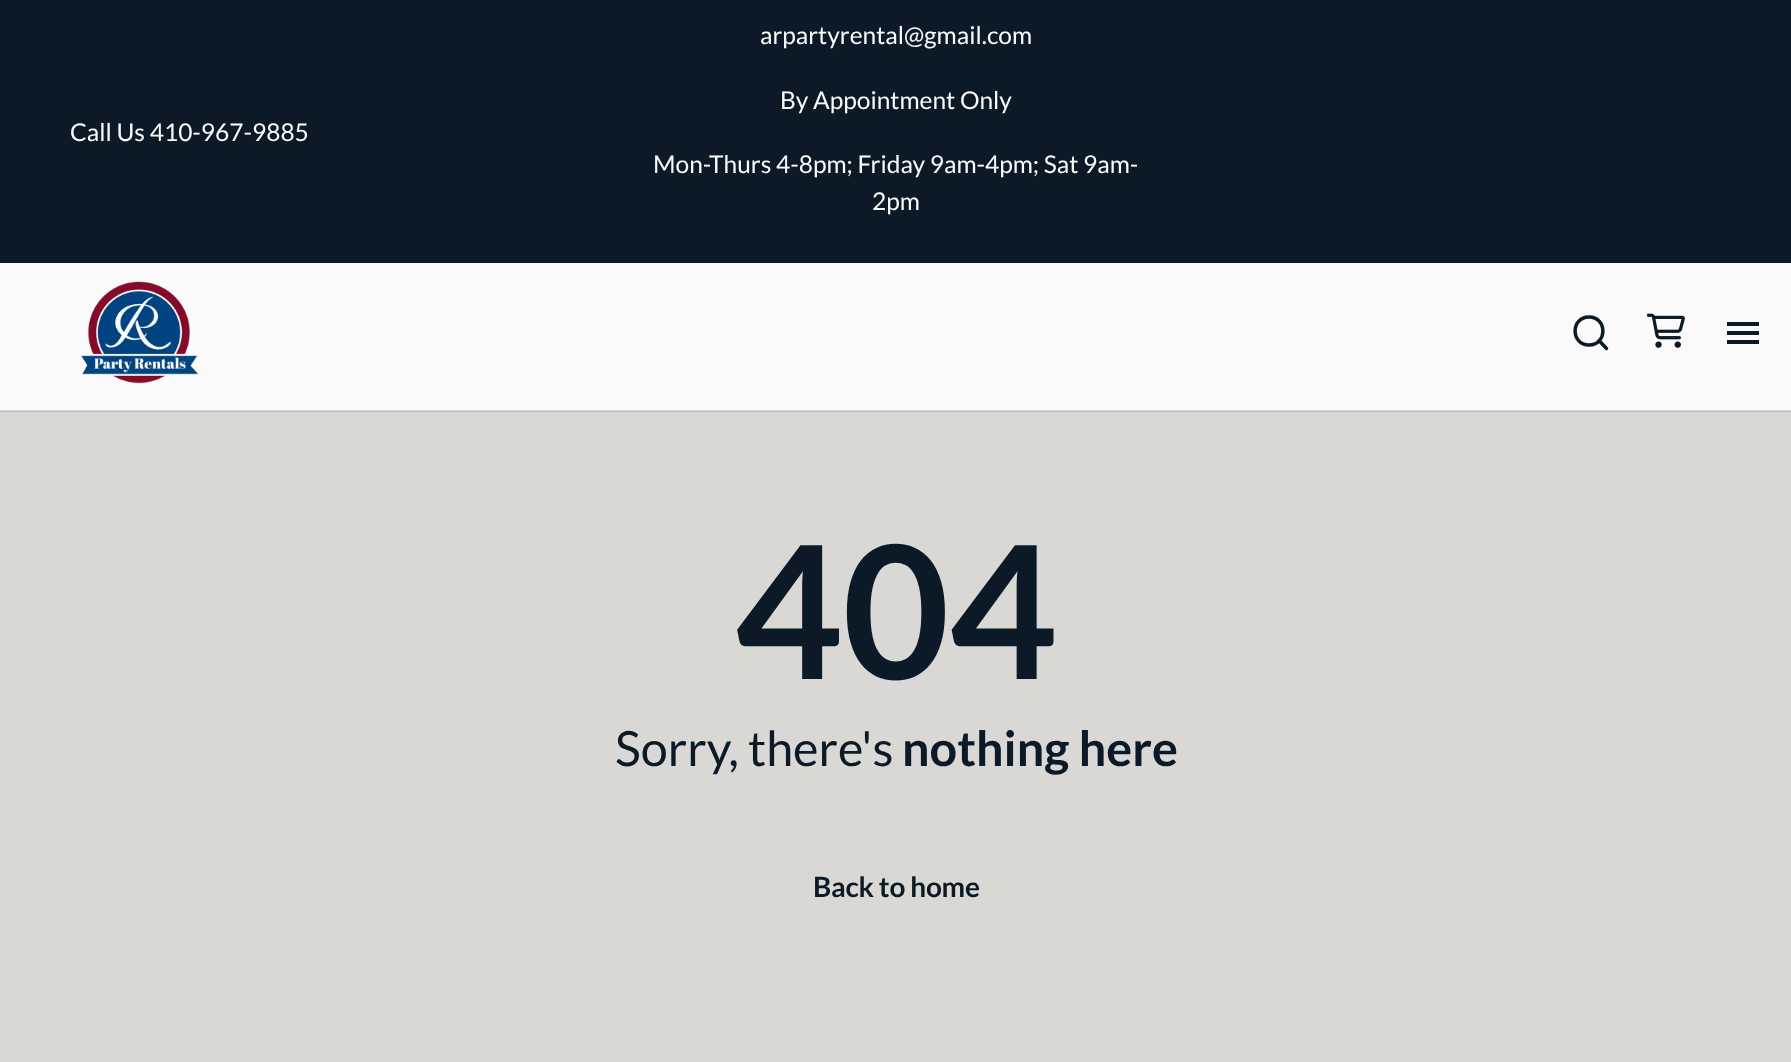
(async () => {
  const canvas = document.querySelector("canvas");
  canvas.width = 1791;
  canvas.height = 1062;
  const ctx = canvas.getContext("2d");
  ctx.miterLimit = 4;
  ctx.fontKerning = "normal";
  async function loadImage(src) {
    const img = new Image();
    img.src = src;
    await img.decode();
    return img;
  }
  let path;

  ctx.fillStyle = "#d9d8d4";
  ctx.fillRect(0, 0, 1791, 1062);
  for (const [x, y, w, h, color] of [
    [0, 0, 1791, 263, "#0b1a26"],
    [0, 263, 1791, 147, "#fafafa"],
    [0, 410, 1791, 1, "#d6d8da"],
  ]) {
    ctx.fillStyle = color;
    ctx.fillRect(x, y, w, h);
  }
  ctx.drawImage(await loadImage("img/1.png"), 79, 281, 121, 103);
  path = new Path2D("M1589 345C1607.5 345 1607.5 317 1589 317C1570.5 317 1570.5 345 1589 345ZM1606.5 348.5L1599 340.5");
  ctx.strokeStyle = "#0b1a26";
  ctx.lineWidth = 3.5;
  ctx.lineCap = "round";
  ctx.lineJoin = "round";
  ctx.stroke(path);
  ctx.drawImage(await loadImage("img/2.png"), 1647, 313, 38, 35);
  for (const [x, y, w, h, color] of [
    [1727, 322, 32, 4, "#0b1a26"],
    [1727, 331, 32, 4, "#0b1a26"],
    [1727, 340, 32, 4, "#0b1a26"],
    [0, 411, 1791, 1, "#babcba"],
  ]) {
    ctx.fillStyle = color;
    ctx.fillRect(x, y, w, h);
  }
  ctx.font = "24.5px Lato";
  ctx.fillStyle = "#fafafa";
  for (const [text, x, y] of [
    ["Call Us 410-967-9885", 70, 141],
    ["arpartyrental@gmail.com", 760, 44],
    ["By Appointment Only", 780, 109],
    ["Mon-Thurs 4-8pm; Friday 9am-4pm; Sat 9am-", 653, 173],
    ["2pm", 872, 210],
  ]) {
    ctx.fillText(text, x, y);
  }
  ctx.font = "bold 185px Lato";
  ctx.fillStyle = "#0b1a26";
  ctx.fillText("404", 735, 679);
  ctx.font = "48.5px Lato";
  ctx.fillText("Sorry, there's", 615, 766);
  ctx.font = "bold 48.5px Lato";
  ctx.fillText("nothing here", 902, 766);
  ctx.letterSpacing = "-0.25px";
  ctx.font = "bold 28px Lato";
  ctx.fillText("Back to home", 813, 897);
})();
